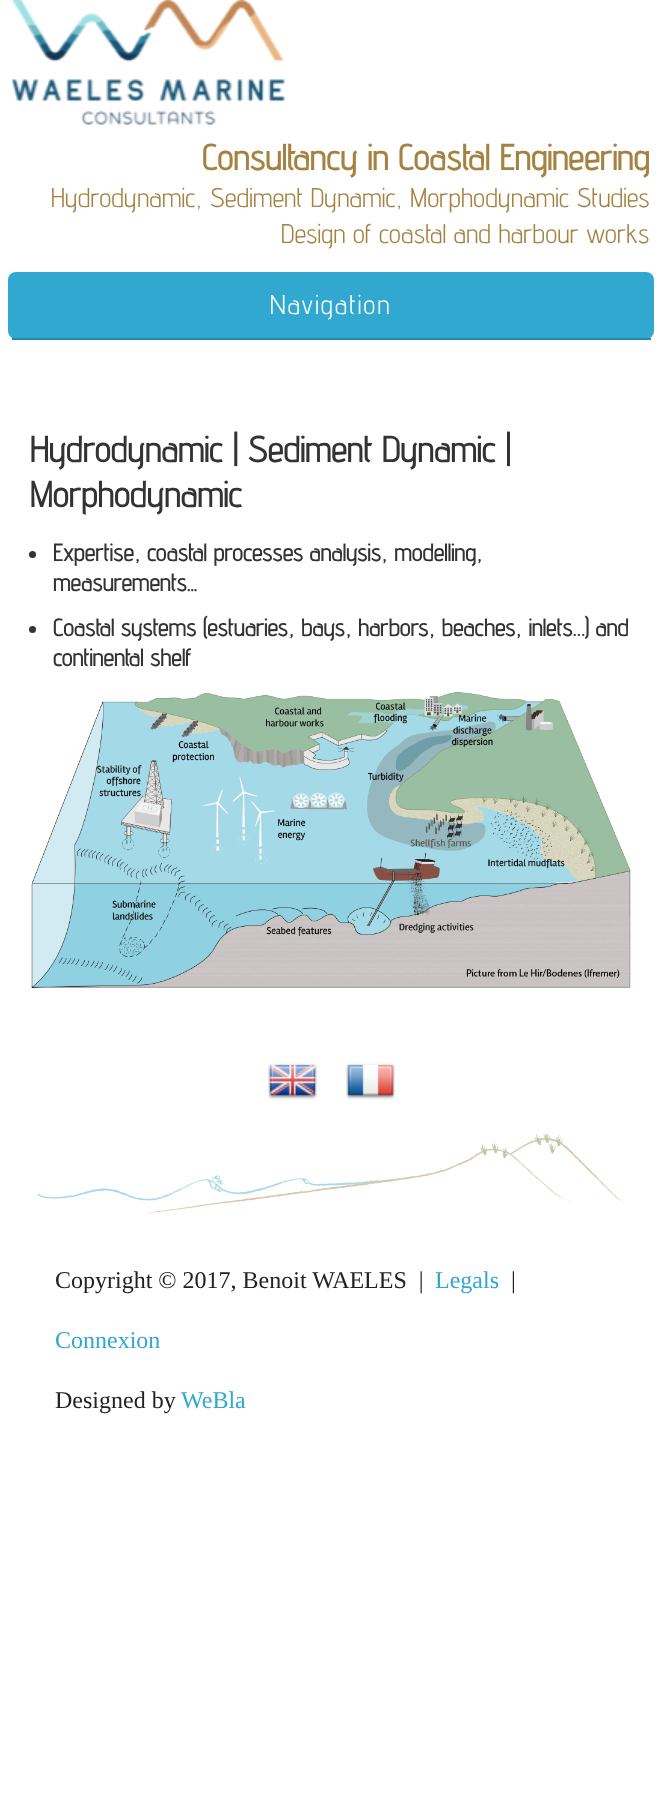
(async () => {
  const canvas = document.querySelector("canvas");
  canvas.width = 661;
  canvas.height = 1803;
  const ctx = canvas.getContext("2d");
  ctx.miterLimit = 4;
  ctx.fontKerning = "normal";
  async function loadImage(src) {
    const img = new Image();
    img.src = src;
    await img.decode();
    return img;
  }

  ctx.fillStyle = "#ffffff";
  ctx.fillRect(0, 0, 661, 1803);
  ctx.drawImage(await loadImage("img/1.png"), 12, 0, 273, 125);
  ctx.fillStyle = "#30a8cf";
  ctx.beginPath();
  ctx.roundRect(8, 272, 646, 67, 8);
  ctx.fill();
  ctx.fillStyle = "#228bae";
  ctx.fillRect(12, 338, 639, 2);
  ctx.fillStyle = "#333333";
  ctx.beginPath();
  ctx.arc(32.5, 554.5, 3.5, 0, Math.PI * 2);
  ctx.fill();
  ctx.beginPath();
  ctx.arc(32.5, 629.5, 3.5, 0, Math.PI * 2);
  ctx.fill();
  ctx.drawImage(await loadImage("img/2.png"), 31, 692, 600, 296);
  ctx.drawImage(await loadImage("img/3.png"), 268, 1063, 49, 37);
  ctx.drawImage(await loadImage("img/4.png"), 346, 1063, 49, 37);
  ctx.drawImage(await loadImage("img/5.png"), 37, 1132, 587, 82);
  ctx.font = "bold 36px Advent Pro";
  ctx.fillStyle = "#a58241";
  ctx.fillText("Consultancy in Coastal Engineering", 202, 170);
  ctx.font = "27px Advent Pro";
  ctx.fillText("Hydrodynamic, Sediment Dynamic, Morphodynamic Studies", 51, 207);
  ctx.fillText("Design of coastal and harbour works", 281, 243);
  ctx.letterSpacing = "1.9px";
  ctx.fillStyle = "#ffffff";
  ctx.fillText("Navigation", 270, 314);
  ctx.letterSpacing = "0px";
  ctx.font = "bold 36px Advent Pro";
  ctx.fillStyle = "#333333";
  ctx.fillText("Hydrodynamic | Sediment Dynamic |", 30, 462);
  ctx.fillText("Morphodynamic", 30, 507);
  ctx.font = "bold 24px Advent Pro";
  for (const [text, x, y] of [
    ["Expertise, coastal processes analysis, modelling,", 53, 561],
    ["measurements...", 53, 591],
    ["Coastal systems (estuaries, bays, harbors, beaches, inlets…) and", 53, 636],
    ["continental shelf", 53, 666],
  ]) {
    ctx.fillText(text, x, y);
  }
  ctx.font = "24px Liberation Serif";
  ctx.fillStyle = "#222222";
  ctx.fillText("Copyright © 2017, Benoit WAELES  |", 55, 1288);
  ctx.fillStyle = "#30a8cf";
  ctx.fillText("Legals", 435, 1288);
  ctx.fillStyle = "#222222";
  ctx.fillText("|", 511, 1288);
  ctx.fillStyle = "#30a8cf";
  ctx.fillText("Connexion", 55, 1348);
  ctx.fillStyle = "#222222";
  ctx.fillText("Designed by", 55, 1408);
  ctx.fillStyle = "#30a8cf";
  ctx.fillText("WeBla", 181, 1408);
})();
